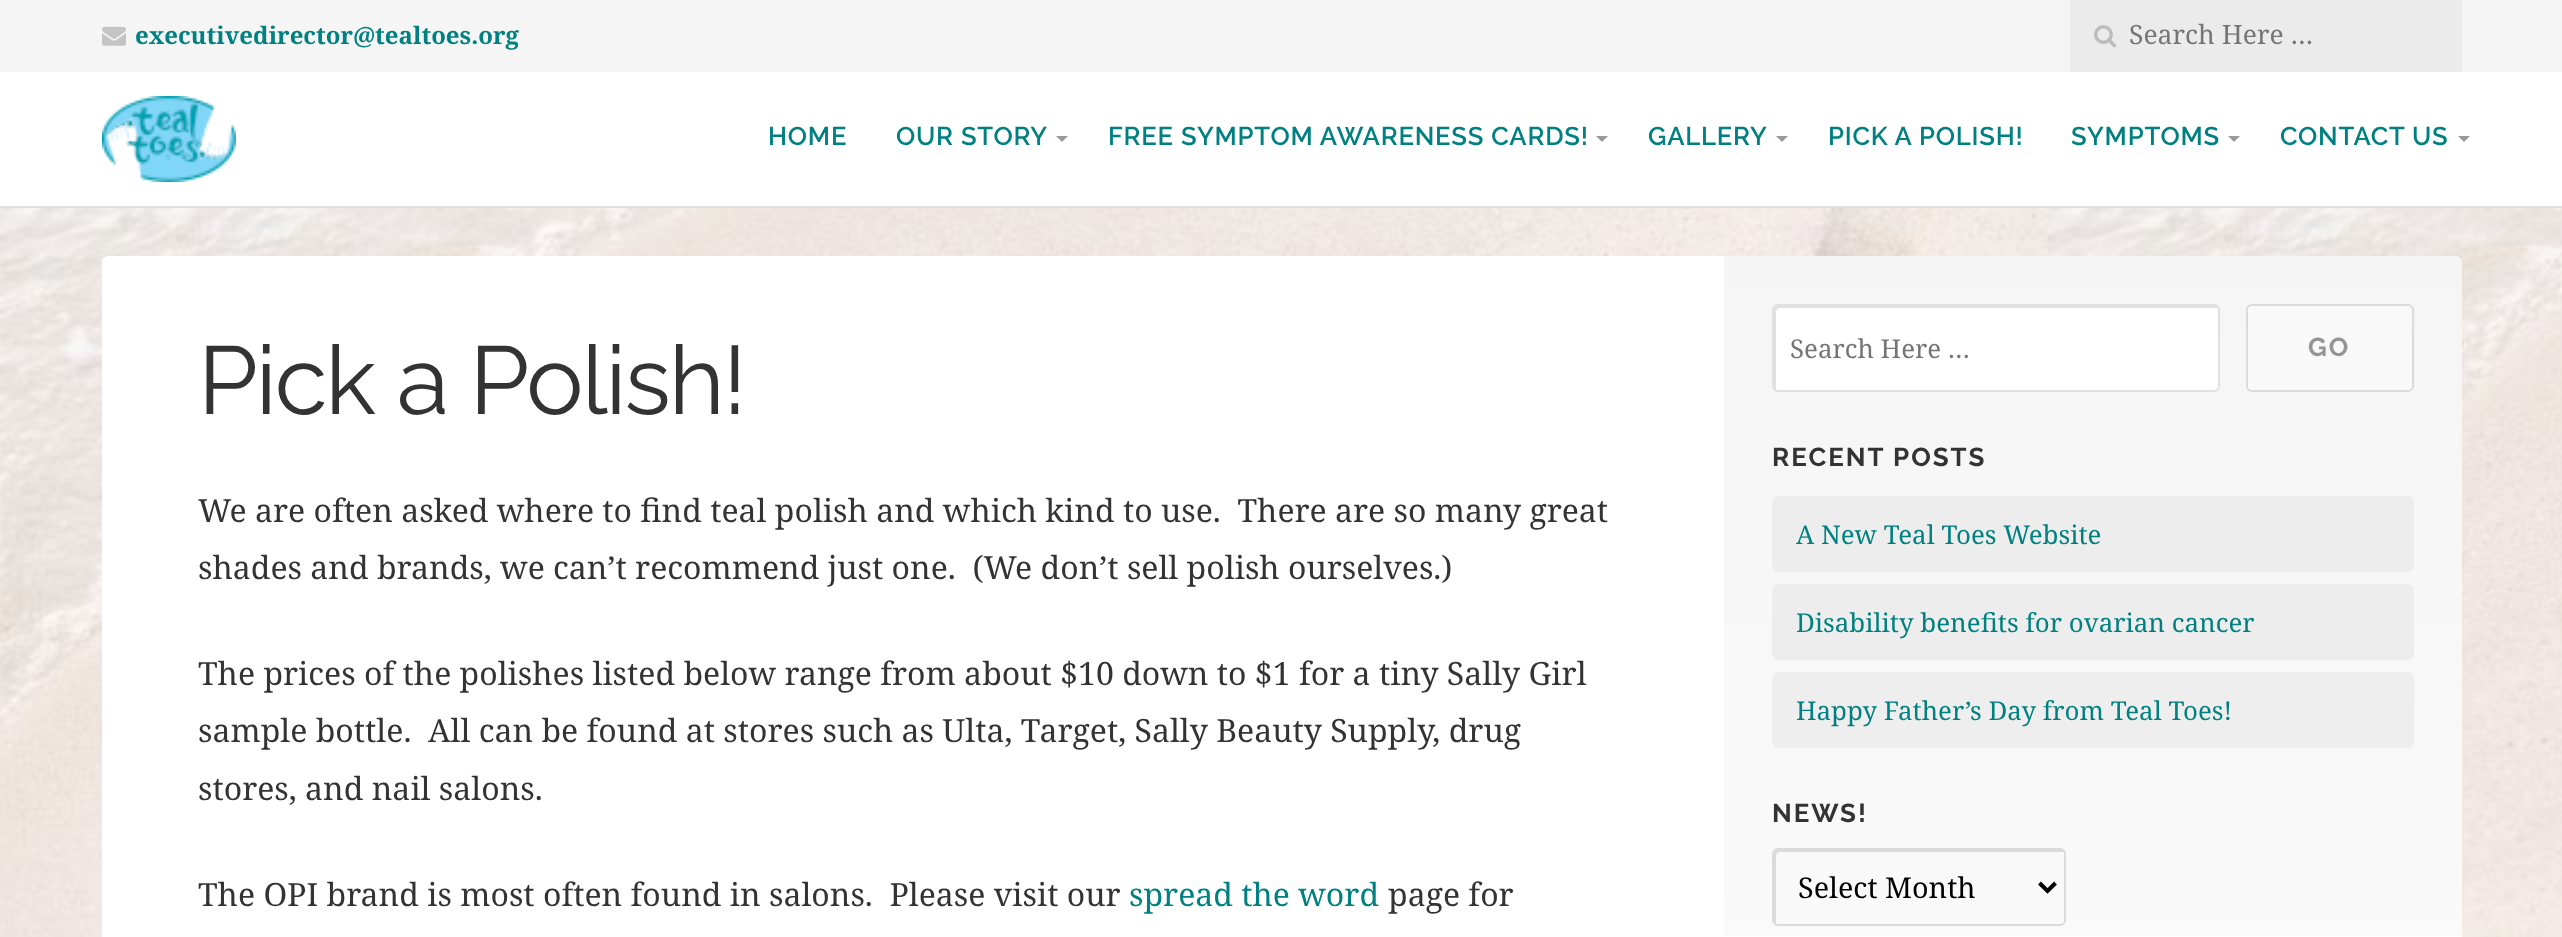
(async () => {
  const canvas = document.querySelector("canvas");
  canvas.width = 2562;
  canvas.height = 937;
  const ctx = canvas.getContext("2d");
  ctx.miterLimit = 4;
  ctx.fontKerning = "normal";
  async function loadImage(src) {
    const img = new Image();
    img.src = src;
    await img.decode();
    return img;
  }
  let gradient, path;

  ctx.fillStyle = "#ffffff";
  ctx.fillRect(0, 0, 2562, 937);
  ctx.drawImage(await loadImage("img/1.png"), 0, 208, 2562, 729);
  ctx.fillStyle = "#e0e0e0";
  ctx.fillRect(0, 206, 2562, 2);
  ctx.fillStyle = "#f5f5f5";
  ctx.fillRect(0, 0, 2562, 72);
  ctx.drawImage(await loadImage("img/2.png"), 102, 26, 24, 20);
  ctx.fillStyle = "#ebebeb";
  ctx.fillRect(2070, 0, 392, 72);
  ctx.drawImage(await loadImage("img/3.png"), 2094, 25, 23, 23);
  ctx.drawImage(await loadImage("img/4.png"), 102, 96, 134, 86);
  ctx.fillStyle = "#999999";
  path = new Path2D("M1056 136H1068L1062 142Z");
  ctx.fill(path);
  path = new Path2D("M1596 136H1608L1602 142Z");
  ctx.fill(path);
  path = new Path2D("M1776 136H1788L1782 142Z");
  ctx.fill(path);
  path = new Path2D("M2228 136H2240L2234 142Z");
  ctx.fill(path);
  path = new Path2D("M2458 136H2470L2464 142Z");
  ctx.fill(path);
  ctx.fillStyle = "#ffffff";
  ctx.beginPath();
  ctx.roundRect(102, 256, 2360, 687, 6);
  ctx.fill();
  gradient = ctx.createLinearGradient(2093, 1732, 2093, 256);
  gradient.addColorStop(0, "rgba(0, 0, 0, 0)");
  gradient.addColorStop(1, "rgba(0, 0, 0, 0.04)");
  ctx.fillStyle = gradient;
  ctx.fillRect(1724, 256, 738, 680);
  ctx.fillStyle = "#ffffff";
  ctx.beginPath();
  ctx.roundRect(1772, 304, 448, 88, 6);
  ctx.fill();
  ctx.fillStyle = "#e0e0e0";
  path = new Path2D("M1780 308H2216H2218C2217 307 2216 306 2214 306H1778C1776 306 1774 308 1774 310V386C1774 388 1775 389 1776 390V388V312C1776 310 1778 308 1780 308Z");
  ctx.fill(path);
  ctx.beginPath();
  ctx.roundRect(1773, 305, 446, 86, 5);
  ctx.strokeStyle = "rgba(0, 0, 0, 0.12)";
  ctx.lineWidth = 2;
  ctx.stroke();
  ctx.fillStyle = "#f9f9f9";
  ctx.beginPath();
  ctx.roundRect(2247, 305, 166, 86, 5);
  ctx.fill();
  ctx.strokeStyle = "#dbdbdb";
  ctx.stroke();
  ctx.fillStyle = "#ededed";
  ctx.beginPath();
  ctx.roundRect(1772, 496, 642, 76, 6);
  ctx.fill();
  ctx.beginPath();
  ctx.roundRect(1772, 584, 642, 76, 6);
  ctx.fill();
  ctx.fillStyle = "#eeeeee";
  ctx.beginPath();
  ctx.roundRect(1772, 672, 642, 76, 6);
  ctx.fill();
  ctx.fillStyle = "#dbdbdb";
  path = new Path2D("M1780 852H2062H2064C2063 851 2062 850 2060 850H1778C1776 850 1774 852 1774 854V920C1774 922 1775 923 1776 924V922V856C1776 854 1778 852 1780 852Z");
  ctx.fill(path);
  ctx.beginPath();
  ctx.roundRect(1773, 849, 292, 76, 5);
  ctx.strokeStyle = "rgba(0, 0, 0, 0.12)";
  ctx.stroke();
  path = new Path2D("M2039.5 883L2047.5 891L2055.5 883");
  ctx.strokeStyle = "#000000";
  ctx.lineWidth = 4;
  ctx.stroke(path);
  ctx.font = "bold 24px Noto Serif";
  ctx.fillStyle = "#008081";
  ctx.fillText("executivedirector@tealtoes.org", 135, 44);
  ctx.font = "26.5px Noto Serif";
  ctx.fillStyle = "#757575";
  ctx.fillText("Search Here …", 2129, 44);
  ctx.letterSpacing = "0.8px";
  ctx.font = "600 25.6px Raleway";
  ctx.fillStyle = "#008081";
  for (const [text, x, y] of [
    ["HOME", 768, 145],
    ["OUR STORY", 896, 145],
    ["FREE SYMPTOM AWARENESS CARDS!", 1108, 145],
    ["GALLERY", 1648, 145],
    ["PICK A POLISH!", 1828, 145],
    ["SYMPTOMS", 2071, 145],
    ["CONTACT US", 2280, 145],
  ]) {
    ctx.fillText(text, x, y);
  }
  ctx.letterSpacing = "-2px";
  ctx.font = "96px Raleway";
  ctx.fillStyle = "#333333";
  ctx.fillText("Pick a Polish!", 198, 414);
  ctx.letterSpacing = "0px";
  ctx.font = "32px Noto Serif";
  for (const [text, x, y] of [
    ["We are often asked where to find teal polish and which kind to use.  There are so many great", 198, 522],
    ["shades and brands, we can’t recommend just one.  (We don’t sell polish ourselves.)", 198, 579],
    ["The prices of the polishes listed below range from about $10 down to $1 for a tiny Sally Girl", 198, 685],
    ["sample bottle.  All can be found at stores such as Ulta, Target, Sally Beauty Supply, drug", 198, 742],
    ["stores, and nail salons.", 198, 800],
    ["The OPI brand is most often found in salons.  Please visit our", 198, 906],
  ]) {
    ctx.fillText(text, x, y);
  }
  ctx.fillStyle = "#008081";
  ctx.fillText("spread the word", 1129, 906);
  ctx.fillStyle = "#333333";
  ctx.fillText("page for", 1388, 906);
  ctx.font = "25.9px Noto Serif";
  ctx.fillStyle = "#757575";
  ctx.fillText("Search Here …", 1790, 358);
  ctx.letterSpacing = "2px";
  ctx.font = "bold 25.9px Raleway";
  ctx.fillStyle = "#959595";
  ctx.fillText("GO", 2308, 356);
  ctx.fillStyle = "#333333";
  ctx.fillText("RECENT POSTS", 1772, 466);
  ctx.letterSpacing = "0px";
  ctx.font = "25.9px Noto Serif";
  ctx.fillStyle = "#008081";
  for (const [text, x, y] of [
    ["A New Teal Toes Website", 1796, 544],
    ["Disability benefits for ovarian cancer", 1796, 632],
    ["Happy Father’s Day from Teal Toes!", 1796, 720],
  ]) {
    ctx.fillText(text, x, y);
  }
  ctx.letterSpacing = "2px";
  ctx.font = "bold 25.9px Raleway";
  ctx.fillStyle = "#333333";
  ctx.fillText("NEWS!", 1772, 822);
  ctx.letterSpacing = "0px";
  ctx.font = "28.75px Noto Serif";
  ctx.fillStyle = "#000000";
  ctx.fillText("Select Month", 1798, 898);
})();
